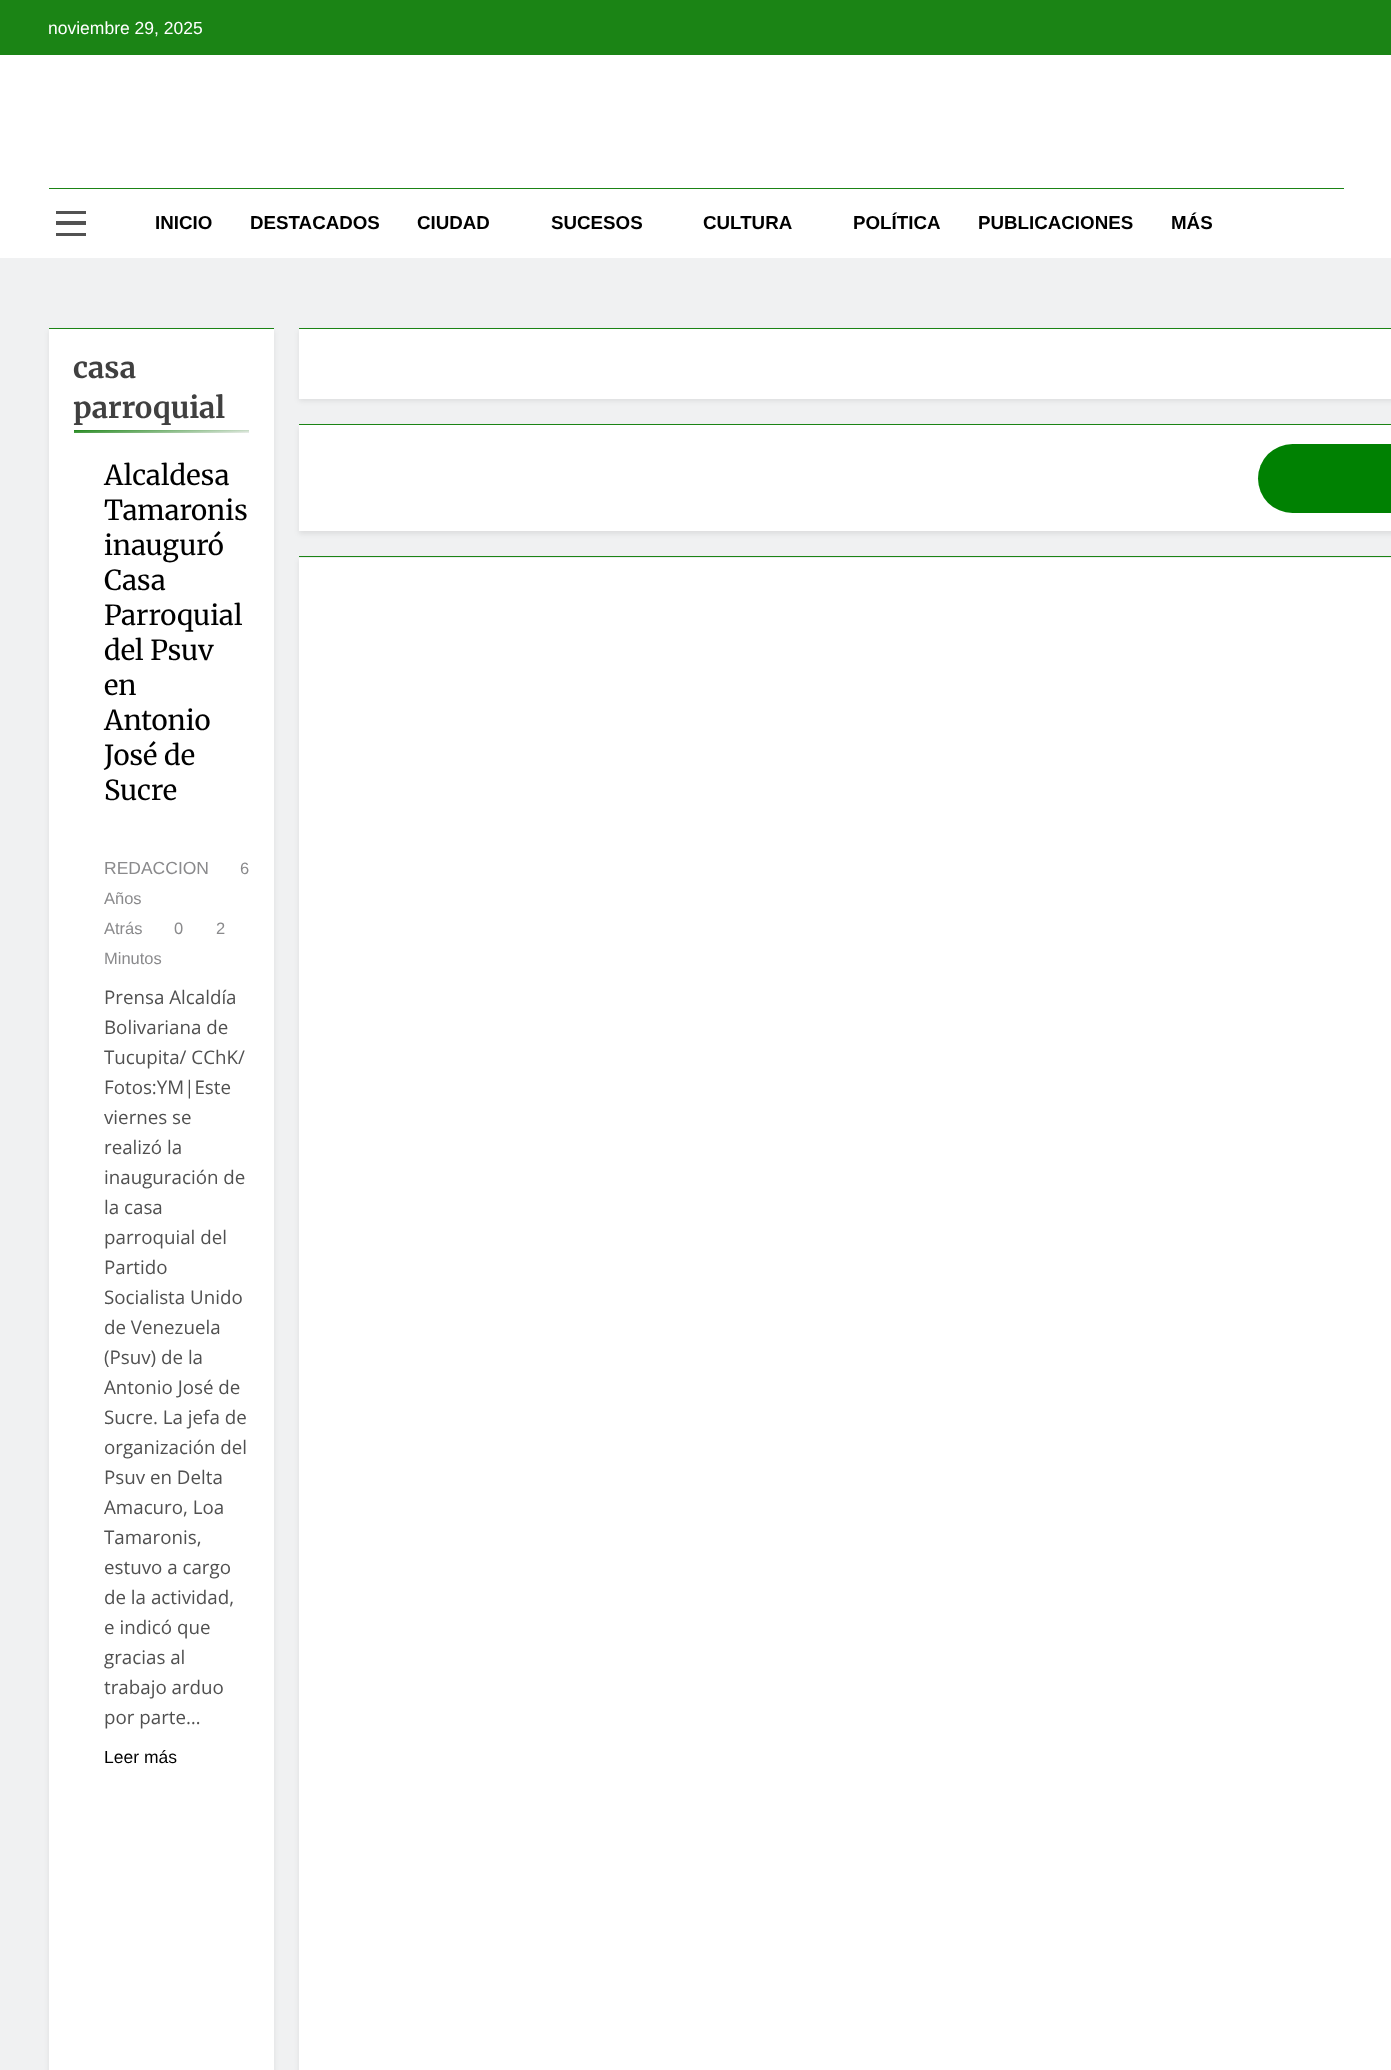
(async () => {
  const canvas = document.querySelector("canvas");
  canvas.width = 1391;
  canvas.height = 2070;
  const ctx = canvas.getContext("2d");
  ctx.miterLimit = 4;
  ctx.fontKerning = "normal";
  let gradient;

  ctx.fillStyle = "#f0f1f2";
  ctx.fillRect(0, 0, 1391, 2070);
  for (const [x, y, w, h, color] of [
    [0, 0, 1391, 55, "#1b8415"],
    [0, 55, 1391, 203, "#ffffff"],
    [49, 188, 1295, 1, "#1b8415"],
    [56, 211, 30, 3, "#525252"],
    [56, 221, 30, 4, "#525252"],
    [56, 233, 30, 3, "#525252"],
  ]) {
    ctx.fillStyle = color;
    ctx.fillRect(x, y, w, h);
  }
  ctx.fillStyle = "rgba(0, 0, 0, 0.08)";
  ctx.filter = "blur(2.5px)";
  ctx.beginPath();
  ctx.rect(49, 331, 225, 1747);
  ctx.fill();
  ctx.filter = "none";
  ctx.fillStyle = "#ffffff";
  ctx.fillRect(49, 329, 225, 1741);
  ctx.fillStyle = "#1b8415";
  ctx.fillRect(49, 328, 225, 1);
  gradient = ctx.createLinearGradient(161, 424, 162, 439);
  gradient.addColorStop(0, "#1b8415");
  gradient.addColorStop(1, "#f0f0f0");
  ctx.fillStyle = gradient;
  ctx.fillRect(74, 430, 175, 3);
  ctx.fillStyle = "rgba(0, 0, 0, 0.08)";
  ctx.filter = "blur(2.5px)";
  ctx.beginPath();
  ctx.rect(299, 331, 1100, 70);
  ctx.fill();
  ctx.filter = "none";
  ctx.fillStyle = "#ffffff";
  ctx.fillRect(299, 329, 1092, 70);
  ctx.fillStyle = "#1b8415";
  ctx.fillRect(299, 328, 1092, 1);
  ctx.fillStyle = "rgba(0, 0, 0, 0.08)";
  ctx.filter = "blur(2.5px)";
  ctx.beginPath();
  ctx.rect(299, 428, 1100, 106);
  ctx.fill();
  ctx.filter = "none";
  ctx.fillStyle = "#ffffff";
  ctx.fillRect(299, 425, 1092, 106);
  ctx.fillStyle = "#1b8415";
  ctx.fillRect(299, 424, 1092, 1);
  ctx.fillStyle = "#008102";
  ctx.beginPath();
  ctx.roundRect(1258, 444, 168, 69, 34.5);
  ctx.fill();
  ctx.fillStyle = "rgba(0, 0, 0, 0.08)";
  ctx.filter = "blur(2.5px)";
  ctx.beginPath();
  ctx.rect(299, 560, 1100, 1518);
  ctx.fill();
  ctx.filter = "none";
  ctx.fillStyle = "#ffffff";
  ctx.fillRect(299, 558, 1092, 1512);
  ctx.fillStyle = "#1b8415";
  ctx.fillRect(299, 556, 1092, 1);
  ctx.font = "17.5px Liberation Sans";
  ctx.fillStyle = "#ffffff";
  ctx.fillText("noviembre 29, 2025", 48, 34);
  ctx.font = "bold 18.75px Liberation Sans";
  ctx.fillStyle = "#000000";
  for (const [text, x, y] of [
    ["INICIO", 155, 229],
    ["DESTACADOS", 250, 229],
    ["CIUDAD", 417, 229],
    ["SUCESOS", 551, 229],
    ["CULTURA", 703, 229],
    ["POLÍTICA", 853, 229],
    ["PUBLICACIONES", 978, 229],
    ["MÁS", 1171, 229],
  ]) {
    ctx.fillText(text, x, y);
  }
  ctx.font = "bold 29.25px Merriweather";
  ctx.fillStyle = "#404040";
  ctx.fillText("casa", 73, 378);
  ctx.fillText("parroquial", 73, 418);
  ctx.font = "27.5px Merriweather";
  ctx.fillStyle = "#000000";
  for (const [text, x, y] of [
    ["Alcaldesa", 104, 485],
    ["Tamaronis", 104, 520],
    ["inauguró", 104, 555],
    ["Casa", 104, 590],
    ["Parroquial", 104, 625],
    ["del Psuv", 104, 660],
    ["en", 104, 695],
    ["Antonio", 104, 730],
    ["José de", 104, 765],
    ["Sucre", 104, 800],
  ]) {
    ctx.fillText(text, x, y);
  }
  ctx.font = "17.5px Liberation Sans";
  ctx.fillStyle = "#8a8a8c";
  ctx.fillText("REDACCION", 104, 874);
  ctx.font = "16.5px Liberation Sans";
  for (const [text, x, y] of [
    ["6", 240, 874],
    ["Años", 104, 904],
    ["Atrás", 104, 934],
    ["0", 174, 934],
    ["2", 216, 934],
    ["Minutos", 104, 964],
  ]) {
    ctx.fillText(text, x, y);
  }
  ctx.font = "18.75px Open Sans";
  ctx.fillStyle = "#505050";
  for (const [text, x, y] of [
    ["Prensa Alcaldía", 104, 1004],
    ["Bolivariana de", 104, 1034],
    ["Tucupita/ CChK/", 104, 1064],
    ["Fotos:YM|Este", 104, 1094],
    ["viernes se", 104, 1124],
    ["realizó la", 104, 1154],
    ["inauguración de", 104, 1184],
    ["la casa", 104, 1214],
    ["parroquial del", 104, 1244],
    ["Partido", 104, 1274],
    ["Socialista Unido", 104, 1304],
    ["de Venezuela", 104, 1334],
    ["(Psuv) de la", 104, 1364],
    ["Antonio José de", 104, 1394],
    ["Sucre. La jefa de", 104, 1424],
    ["organización del", 104, 1454],
    ["Psuv en Delta", 104, 1484],
    ["Amacuro, Loa", 104, 1514],
    ["Tamaronis,", 104, 1544],
    ["estuvo a cargo", 104, 1574],
    ["de la actividad,", 104, 1604],
    ["e indicó que", 104, 1634],
    ["gracias al", 104, 1664],
    ["trabajo arduo", 104, 1694],
    ["por parte…", 104, 1724],
  ]) {
    ctx.fillText(text, x, y);
  }
  ctx.font = "17.5px Liberation Sans";
  ctx.fillStyle = "#000000";
  ctx.fillText("Leer más", 104, 1763);
})();
